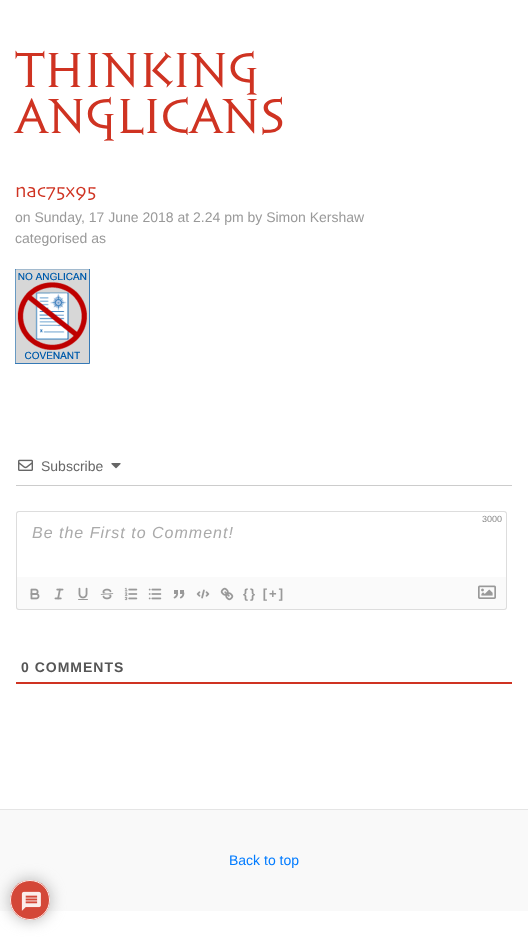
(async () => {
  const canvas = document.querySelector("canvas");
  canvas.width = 528;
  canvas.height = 940;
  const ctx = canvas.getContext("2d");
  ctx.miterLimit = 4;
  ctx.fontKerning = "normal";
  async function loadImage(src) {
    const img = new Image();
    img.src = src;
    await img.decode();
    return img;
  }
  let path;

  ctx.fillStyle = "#ffffff";
  ctx.fillRect(0, 0, 528, 940);
  ctx.drawImage(await loadImage("img/1.png"), 15, 269, 75, 95);
  ctx.fillStyle = "#cccccc";
  ctx.fillRect(16, 485, 496, 1);
  ctx.drawImage(await loadImage("img/2.png"), 18, 459, 15, 12);
  ctx.drawImage(await loadImage("img/3.png"), 111, 463, 10, 6);
  ctx.fillStyle = "#dddddd";
  path = new Path2D("M19 511H504C506 511 507 512 507 514V577H16V514C16 512 17 511 19 511ZM19 512H504C505 512 506 513 506 514V577H17V514C17 513 18 512 19 512Z");
  ctx.fill(path, "evenodd");
  ctx.fillStyle = "#fafafa";
  ctx.beginPath();
  ctx.roundRect(16, 577, 491, 33, [0, 0, 3, 3]);
  ctx.fill();
  ctx.fillStyle = "#dddddd";
  path = new Path2D("M16 577H507V607C507 609 506 610 504 610H19C17 610 16 609 16 607ZM17 577H506V607C506 608 505 609 504 609H19C18 609 17 608 17 607Z");
  ctx.fill(path, "evenodd");
  ctx.drawImage(await loadImage("img/4.png"), 30, 588, 10, 12);
  ctx.drawImage(await loadImage("img/5.png"), 54, 588, 10, 12);
  ctx.drawImage(await loadImage("img/6.png"), 78, 587, 10, 13);
  ctx.drawImage(await loadImage("img/7.png"), 100, 588, 14, 12);
  ctx.drawImage(await loadImage("img/8.png"), 124, 587, 14, 14);
  ctx.drawImage(await loadImage("img/9.png"), 148, 588, 14, 12);
  ctx.drawImage(await loadImage("img/10.png"), 173, 590, 12, 9);
  ctx.drawImage(await loadImage("img/11.png"), 196, 589, 14, 10);
  ctx.drawImage(await loadImage("img/12.png"), 220, 587, 14, 14);
  ctx.drawImage(await loadImage("img/13.png"), 478, 585, 18, 14);
  ctx.fillStyle = "#cf3322";
  ctx.fillRect(16, 682, 496, 2);
  ctx.fillStyle = "#f9f9f9";
  ctx.fillRect(0, 810, 528, 101);
  ctx.save();
  path = new Path2D("M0 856H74V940H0ZM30 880C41 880 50 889 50 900C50 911 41 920 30 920C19 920 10 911 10 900C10 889 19 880 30 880Z");
  ctx.clip(path, "evenodd");
  ctx.fillStyle = "rgba(170, 170, 170, 0.9)";
  ctx.filter = "blur(7.5px)";
  ctx.beginPath();
  ctx.roundRect(10, 880, 40, 40, 20);
  ctx.fill();
  ctx.filter = "none";
  ctx.restore();
  ctx.fillStyle = "rgba(207, 51, 34, 0.9)";
  ctx.beginPath();
  ctx.arc(30, 900, 20, 0, Math.PI * 2);
  ctx.fill();
  ctx.beginPath();
  ctx.arc(30, 900, 19.5, 0, Math.PI * 2);
  ctx.strokeStyle = "rgba(255, 255, 255, 0.9)";
  ctx.stroke();
  ctx.drawImage(await loadImage("img/14.png"), 21, 891, 20, 20);
  ctx.fillStyle = "#e5e5e5";
  ctx.fillRect(0, 809, 528, 1);
  ctx.font = "46px 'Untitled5'";
  ctx.fillStyle = "#cf3322";
  ctx.fillText("THINKING", 15, 87);
  ctx.fillText("ANGLICANS", 15, 133);
  ctx.font = "20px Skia";
  ctx.fillText("nac75x95", 15, 197);
  ctx.font = "14px Liberation Sans";
  ctx.fillStyle = "#999999";
  ctx.fillText("on Sunday, 17 June 2018 at 2.24 pm by Simon Kershaw", 15, 222);
  ctx.fillText("categorised as", 15, 243);
  ctx.fillStyle = "#666666";
  ctx.fillText("Subscribe", 41, 471);
  ctx.font = "9px Liberation Sans";
  ctx.fillStyle = "#888888";
  ctx.fillText("3000", 482, 522);
  ctx.letterSpacing = "1px";
  ctx.font = "italic 16px Liberation Sans";
  ctx.fillStyle = "#aaaaaa";
  ctx.fillText("Be the First to Comment!", 32, 538);
  ctx.letterSpacing = "2px";
  ctx.font = "bold 13px Liberation Sans";
  ctx.fillStyle = "#999999";
  ctx.fillText("{} [+]", 243, 598);
  ctx.letterSpacing = "1px";
  ctx.font = "bold 14px Liberation Sans";
  ctx.fillStyle = "#555555";
  ctx.fillText("0 COMMENTS", 21, 672);
  ctx.letterSpacing = "0px";
  ctx.font = "14px Liberation Sans";
  ctx.fillStyle = "#007bff";
  ctx.fillText("Back to top", 229, 865);
})();
